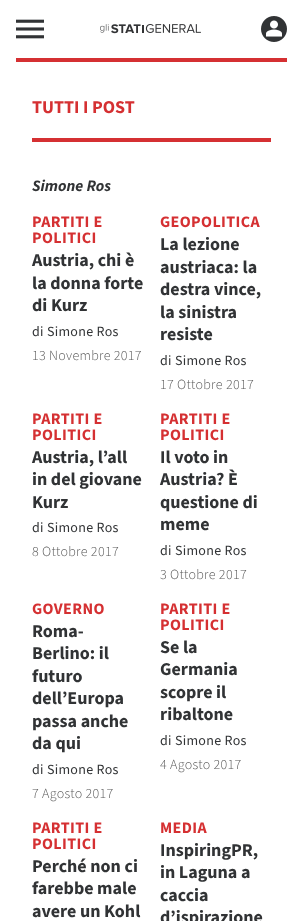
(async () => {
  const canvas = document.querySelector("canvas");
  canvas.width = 303;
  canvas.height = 921;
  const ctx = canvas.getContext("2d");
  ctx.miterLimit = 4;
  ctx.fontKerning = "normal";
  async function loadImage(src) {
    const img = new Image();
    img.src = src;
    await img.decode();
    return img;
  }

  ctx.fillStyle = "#ffffff";
  ctx.fillRect(0, 0, 303, 921);
  ctx.drawImage(await loadImage("img/1.png"), 16, 19, 28, 20);
  ctx.drawImage(await loadImage("img/2.png"), 100, 24, 101, 10);
  ctx.drawImage(await loadImage("img/3.png"), 261, 16, 26, 26);
  ctx.fillStyle = "#d53032";
  ctx.fillRect(16, 58, 271, 4);
  ctx.fillRect(32, 138, 239, 4);
  ctx.font = "200 18px 'Source Sans 3'";
  ctx.fillText("TUTTI I POST", 32, 113);
  ctx.font = "italic 200 16px 'Source Sans 3'";
  ctx.fillStyle = "#313335";
  ctx.fillText("Simone Ros", 32, 191);
  ctx.letterSpacing = "0.4px";
  ctx.font = "200 16px 'Source Sans 3'";
  ctx.fillStyle = "#d53032";
  ctx.fillText("PARTITI E", 32, 227);
  ctx.fillText("POLITICI", 32, 243);
  ctx.letterSpacing = "0px";
  ctx.font = "200 18px 'Source Sans 3'";
  ctx.fillStyle = "#313335";
  for (const [text, x, y] of [
    ["Austria, chi è", 32, 266],
    ["la donna forte", 32, 289],
    ["di Kurz", 32, 311],
  ]) {
    ctx.fillText(text, x, y);
  }
  ctx.letterSpacing = "0.3px";
  ctx.font = "200 14px 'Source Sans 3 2'";
  ctx.fillText("di Simone Ros", 32, 336);
  ctx.font = "200 14px 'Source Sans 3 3'";
  ctx.fillStyle = "#595959";
  ctx.fillText("13 Novembre 2017", 32, 360);
  ctx.letterSpacing = "0.4px";
  ctx.font = "200 16px 'Source Sans 3'";
  ctx.fillStyle = "#d53032";
  ctx.fillText("GEOPOLITICA", 160, 227);
  ctx.letterSpacing = "0px";
  ctx.font = "200 18px 'Source Sans 3'";
  ctx.fillStyle = "#313335";
  for (const [text, x, y] of [
    ["La lezione", 160, 250],
    ["austriaca: la", 160, 273],
    ["destra vince,", 160, 295],
    ["la sinistra", 160, 318],
    ["resiste", 160, 340],
  ]) {
    ctx.fillText(text, x, y);
  }
  ctx.letterSpacing = "0.3px";
  ctx.font = "200 14px 'Source Sans 3 2'";
  ctx.fillText("di Simone Ros", 160, 365);
  ctx.font = "200 14px 'Source Sans 3 3'";
  ctx.fillStyle = "#595959";
  ctx.fillText("17 Ottobre 2017", 160, 389);
  ctx.letterSpacing = "0.4px";
  ctx.font = "200 16px 'Source Sans 3'";
  ctx.fillStyle = "#d53032";
  ctx.fillText("PARTITI E", 32, 424);
  ctx.fillText("POLITICI", 32, 440);
  ctx.letterSpacing = "0px";
  ctx.font = "200 18px 'Source Sans 3'";
  ctx.fillStyle = "#313335";
  for (const [text, x, y] of [
    ["Austria, l’all", 32, 463],
    ["in del giovane", 32, 485],
    ["Kurz", 32, 508],
  ]) {
    ctx.fillText(text, x, y);
  }
  ctx.letterSpacing = "0.3px";
  ctx.font = "200 14px 'Source Sans 3 2'";
  ctx.fillText("di Simone Ros", 32, 532);
  ctx.font = "200 14px 'Source Sans 3 3'";
  ctx.fillStyle = "#595959";
  ctx.fillText("8 Ottobre 2017", 32, 556);
  ctx.letterSpacing = "0.4px";
  ctx.font = "200 16px 'Source Sans 3'";
  ctx.fillStyle = "#d53032";
  ctx.fillText("PARTITI E", 160, 424);
  ctx.fillText("POLITICI", 160, 440);
  ctx.letterSpacing = "0px";
  ctx.font = "200 18px 'Source Sans 3'";
  ctx.fillStyle = "#313335";
  for (const [text, x, y] of [
    ["Il voto in", 160, 463],
    ["Austria? È", 160, 485],
    ["questione di", 160, 508],
    ["meme", 160, 530],
  ]) {
    ctx.fillText(text, x, y);
  }
  ctx.letterSpacing = "0.3px";
  ctx.font = "200 14px 'Source Sans 3 2'";
  ctx.fillText("di Simone Ros", 160, 555);
  ctx.font = "200 14px 'Source Sans 3 3'";
  ctx.fillStyle = "#595959";
  ctx.fillText("3 Ottobre 2017", 160, 579);
  ctx.letterSpacing = "0.4px";
  ctx.font = "200 16px 'Source Sans 3'";
  ctx.fillStyle = "#d53032";
  ctx.fillText("GOVERNO", 32, 614);
  ctx.letterSpacing = "0px";
  ctx.font = "200 18px 'Source Sans 3'";
  ctx.fillStyle = "#313335";
  for (const [text, x, y] of [
    ["Roma-", 32, 637],
    ["Berlino: il", 32, 659],
    ["futuro", 32, 682],
    ["dell’Europa", 32, 704],
    ["passa anche", 32, 727],
    ["da qui", 32, 749],
  ]) {
    ctx.fillText(text, x, y);
  }
  ctx.letterSpacing = "0.3px";
  ctx.font = "200 14px 'Source Sans 3 2'";
  ctx.fillText("di Simone Ros", 32, 774);
  ctx.font = "200 14px 'Source Sans 3 3'";
  ctx.fillStyle = "#595959";
  ctx.fillText("7 Agosto 2017", 32, 798);
  ctx.letterSpacing = "0.4px";
  ctx.font = "200 16px 'Source Sans 3'";
  ctx.fillStyle = "#d53032";
  ctx.fillText("PARTITI E", 160, 614);
  ctx.fillText("POLITICI", 160, 630);
  ctx.letterSpacing = "0px";
  ctx.font = "200 18px 'Source Sans 3'";
  ctx.fillStyle = "#313335";
  for (const [text, x, y] of [
    ["Se la", 160, 653],
    ["Germania", 160, 675],
    ["scopre il", 160, 698],
    ["ribaltone", 160, 720],
  ]) {
    ctx.fillText(text, x, y);
  }
  ctx.letterSpacing = "0.3px";
  ctx.font = "200 14px 'Source Sans 3 2'";
  ctx.fillText("di Simone Ros", 160, 745);
  ctx.font = "200 14px 'Source Sans 3 3'";
  ctx.fillStyle = "#595959";
  ctx.fillText("4 Agosto 2017", 160, 769);
  ctx.letterSpacing = "0.4px";
  ctx.font = "200 16px 'Source Sans 3'";
  ctx.fillStyle = "#d53032";
  ctx.fillText("PARTITI E", 32, 833);
  ctx.fillText("POLITICI", 32, 849);
  ctx.letterSpacing = "0px";
  ctx.font = "200 18px 'Source Sans 3'";
  ctx.fillStyle = "#313335";
  for (const [text, x, y] of [
    ["Perché non ci", 32, 872],
    ["farebbe male", 32, 894],
    ["avere un Kohl", 32, 917],
  ]) {
    ctx.fillText(text, x, y);
  }
  ctx.letterSpacing = "0.4px";
  ctx.font = "200 16px 'Source Sans 3'";
  ctx.fillStyle = "#d53032";
  ctx.fillText("MEDIA", 160, 833);
  ctx.letterSpacing = "0px";
  ctx.font = "200 18px 'Source Sans 3'";
  ctx.fillStyle = "#313335";
  for (const [text, x, y] of [
    ["InspiringPR,", 160, 856],
    ["in Laguna a", 160, 878],
    ["caccia", 160, 901],
    ["d’ispirazione", 160, 923],
  ]) {
    ctx.fillText(text, x, y);
  }
})();
